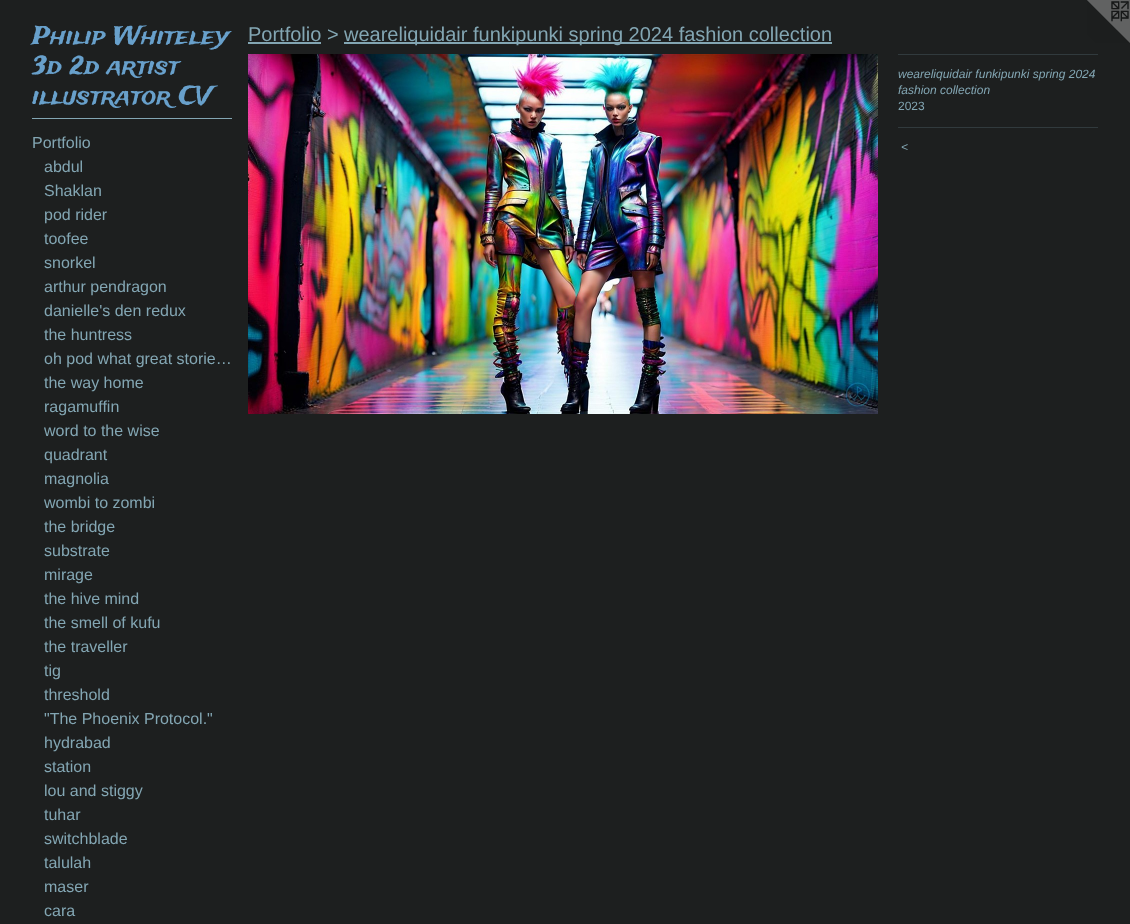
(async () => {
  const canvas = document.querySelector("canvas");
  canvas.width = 1130;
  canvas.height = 924;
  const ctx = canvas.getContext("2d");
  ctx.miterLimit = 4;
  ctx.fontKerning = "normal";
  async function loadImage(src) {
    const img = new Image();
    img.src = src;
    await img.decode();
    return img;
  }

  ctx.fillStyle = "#1d1f1f";
  ctx.fillRect(0, 0, 1130, 924);
  ctx.fillStyle = "#83a6b3";
  ctx.fillRect(32, 118, 200, 1);
  ctx.drawImage(await loadImage("img/1.png"), 1087, 0, 43, 43);
  ctx.fillRect(248, 42, 73, 2);
  ctx.fillRect(344, 42, 488, 2);
  ctx.drawImage(await loadImage("img/2.png"), 248, 54, 630, 360);
  ctx.fillStyle = "#313a3d";
  ctx.fillRect(898, 54, 200, 1);
  ctx.fillRect(898, 127, 200, 1);
  ctx.font = "25px Trade Winds";
  ctx.fillStyle = "#68a0cb";
  for (const [text, x, y] of [
    ["Philip Whiteley", 32, 44],
    ["3d 2d artist", 32, 74],
    ["illustrator CV", 32, 104],
  ]) {
    ctx.fillText(text, x, y);
  }
  ctx.font = "16px Liberation Sans";
  ctx.fillStyle = "#83a6b3";
  for (const [text, x, y] of [
    ["Portfolio", 32, 148],
    ["abdul", 44, 172],
    ["Shaklan", 44, 196],
    ["pod rider", 44, 220],
    ["toofee", 44, 244],
    ["snorkel", 44, 268],
    ["arthur pendragon", 44, 292],
    ["danielle's den redux", 44, 316],
    ["the huntress", 44, 340],
    ["oh pod what great storie…", 44, 364],
    ["the way home", 44, 388],
    ["ragamuffin", 44, 412],
    ["word to the wise", 44, 436],
    ["quadrant", 44, 460],
    ["magnolia", 44, 484],
    ["wombi to zombi", 44, 508],
    ["the bridge", 44, 532],
    ["substrate", 44, 556],
    ["mirage", 44, 580],
    ["the hive mind", 44, 604],
    ["the smell of kufu", 44, 628],
    ["the traveller", 44, 652],
    ["tig", 44, 676],
    ["threshold", 44, 700],
    ["\"The Phoenix Protocol.\"", 44, 724],
    ["hydrabad", 44, 748],
    ["station", 44, 772],
    ["lou and stiggy", 44, 796],
    ["tuhar", 44, 820],
    ["switchblade", 44, 844],
    ["talulah", 44, 868],
    ["maser", 44, 892],
    ["cara", 44, 916],
  ]) {
    ctx.fillText(text, x, y);
  }
  ctx.font = "20px Liberation Sans";
  ctx.fillText("Portfolio >", 248, 41);
  ctx.fillText("weareliquidair funkipunki spring 2024 fashion collection", 344, 41);
  ctx.font = "italic 12px Liberation Sans";
  ctx.fillText("weareliquidair funkipunki spring 2024", 898, 78);
  ctx.fillText("fashion collection", 898, 94);
  ctx.font = "12px Liberation Sans";
  ctx.fillText("2023", 898, 110);
  ctx.letterSpacing = "1px";
  ctx.font = "italic 12px Liberation Sans";
  ctx.fillText("<", 901, 151);
})();
